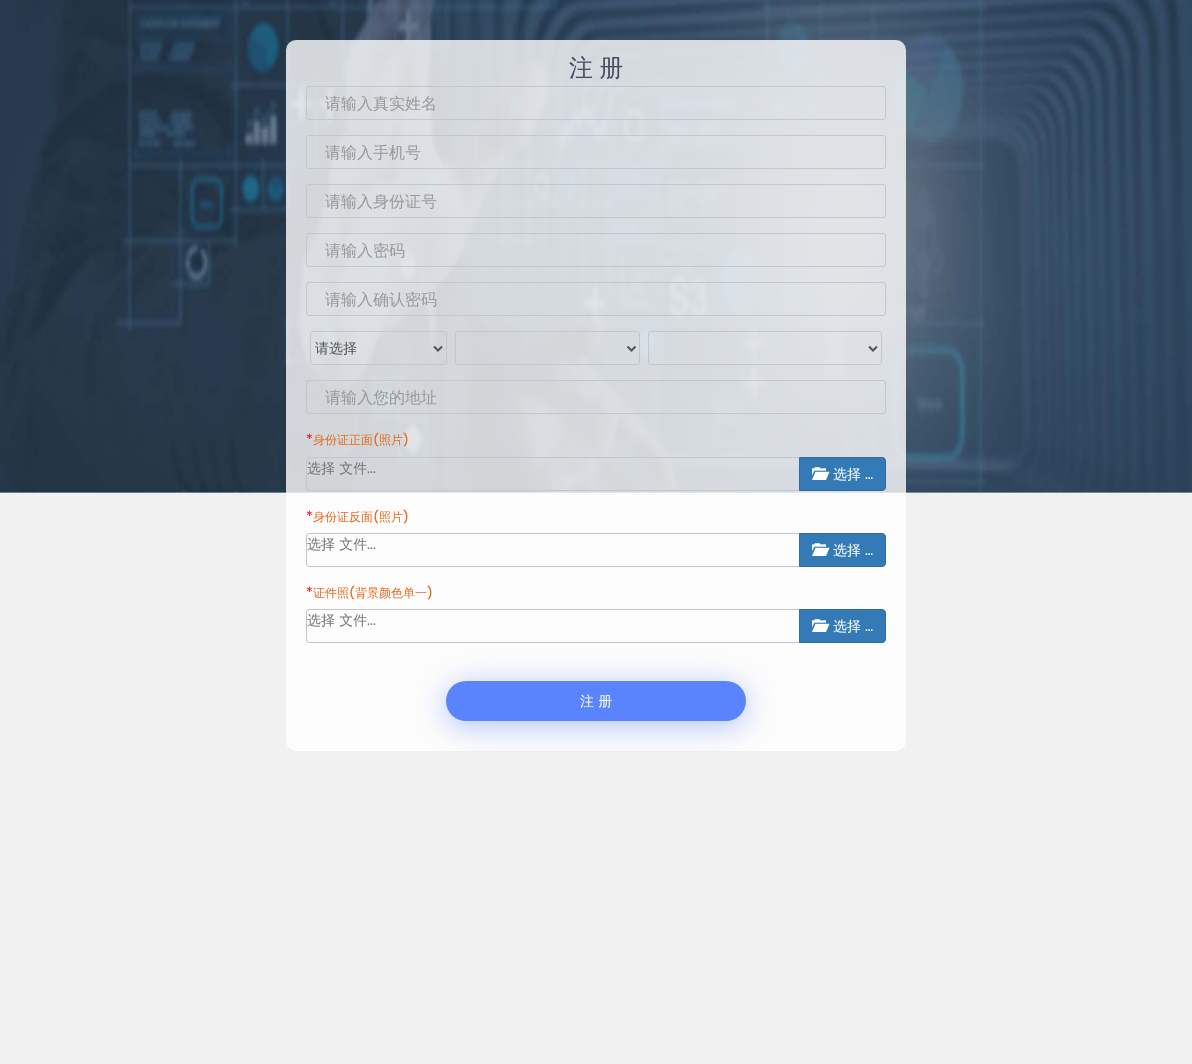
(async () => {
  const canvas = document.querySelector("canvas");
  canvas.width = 1192;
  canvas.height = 1064;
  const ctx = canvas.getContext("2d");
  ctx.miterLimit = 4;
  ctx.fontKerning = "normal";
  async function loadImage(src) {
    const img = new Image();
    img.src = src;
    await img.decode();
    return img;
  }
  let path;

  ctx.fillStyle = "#ffffff";
  ctx.fillRect(0, 0, 1192, 1064);
  ctx.drawImage(await loadImage("img/1.png"), 0, 0, 1192, 1064);
  ctx.fillStyle = "rgba(255, 255, 255, 0.8)";
  ctx.beginPath();
  ctx.roundRect(286, 40, 620, 711, 10);
  ctx.fill();
  ctx.beginPath();
  ctx.roundRect(306.5, 86.5, 579, 33, 2.5);
  ctx.strokeStyle = "#c3c6cf";
  ctx.stroke();
  ctx.beginPath();
  ctx.roundRect(306.5, 135.5, 579, 33, 2.5);
  ctx.stroke();
  ctx.beginPath();
  ctx.roundRect(306.5, 184.5, 579, 33, 2.5);
  ctx.stroke();
  ctx.beginPath();
  ctx.roundRect(306.5, 233.5, 579, 33, 2.5);
  ctx.stroke();
  ctx.beginPath();
  ctx.roundRect(306.5, 282.5, 579, 33, 2.5);
  ctx.stroke();
  ctx.beginPath();
  ctx.roundRect(310.5, 331.5, 136, 33, 2.5);
  ctx.stroke();
  path = new Path2D("M434 346.5L438 350.5L442 346.5");
  ctx.strokeStyle = "#555555";
  ctx.lineWidth = 2;
  ctx.stroke(path);
  ctx.beginPath();
  ctx.roundRect(455.5, 331.5, 184, 33, 2.5);
  ctx.strokeStyle = "#c3c6cf";
  ctx.lineWidth = 1;
  ctx.stroke();
  path = new Path2D("M627.5 346.5L631.5 350.5L635.5 346.5");
  ctx.strokeStyle = "#555555";
  ctx.lineWidth = 2;
  ctx.stroke(path);
  ctx.beginPath();
  ctx.roundRect(648.5, 331.5, 233, 33, 2.5);
  ctx.strokeStyle = "#c3c6cf";
  ctx.lineWidth = 1;
  ctx.stroke();
  path = new Path2D("M869 346.5L873 350.5L877 346.5");
  ctx.strokeStyle = "#555555";
  ctx.lineWidth = 2;
  ctx.stroke(path);
  ctx.beginPath();
  ctx.roundRect(306.5, 380.5, 579, 33, 2.5);
  ctx.strokeStyle = "#c3c6cf";
  ctx.lineWidth = 1;
  ctx.stroke();
  ctx.beginPath();
  ctx.roundRect(306.5, 457.5, 493, 33, [2.5, 0, 0, 2.5]);
  ctx.stroke();
  ctx.fillStyle = "#337ab7";
  ctx.beginPath();
  ctx.roundRect(799.5, 457.5, 86, 33, [0, 3.5, 3.5, 0]);
  ctx.fill();
  ctx.strokeStyle = "#2e6da4";
  ctx.stroke();
  ctx.drawImage(await loadImage("img/2.png"), 812, 467, 18, 13);
  ctx.beginPath();
  ctx.roundRect(306.5, 533.5, 493, 33, [2.5, 0, 0, 2.5]);
  ctx.strokeStyle = "#c3c6cf";
  ctx.stroke();
  ctx.beginPath();
  ctx.roundRect(799.5, 533.5, 86, 33, [0, 3.5, 3.5, 0]);
  ctx.fill();
  ctx.strokeStyle = "#2e6da4";
  ctx.stroke();
  ctx.drawImage(await loadImage("img/2.png"), 812, 543, 18, 13);
  ctx.fillStyle = "rgba(0, 66, 255, 0.3)";
  ctx.filter = "blur(15px)";
  ctx.beginPath();
  ctx.roundRect(446, 686, 300, 40, 20);
  ctx.fill();
  ctx.filter = "none";
  ctx.beginPath();
  ctx.roundRect(306.5, 609.5, 493, 33, [2.5, 0, 0, 2.5]);
  ctx.strokeStyle = "#c3c6cf";
  ctx.stroke();
  ctx.fillStyle = "#337ab7";
  ctx.beginPath();
  ctx.roundRect(799.5, 609.5, 86, 33, [0, 3.5, 3.5, 0]);
  ctx.fill();
  ctx.strokeStyle = "#2e6da4";
  ctx.stroke();
  ctx.drawImage(await loadImage("img/2.png"), 812, 619, 18, 13);
  ctx.fillStyle = "#5a84fd";
  ctx.beginPath();
  ctx.roundRect(446, 681, 300, 40, 20);
  ctx.fill();
  ctx.wordSpacing = "-1px";
  ctx.font = "500 24px WenQuanYi Zen Hei";
  ctx.fillStyle = "#464d5f";
  ctx.fillText("注 册", 569, 76);
  ctx.wordSpacing = "0px";
  ctx.font = "500 16px WenQuanYi Zen Hei";
  ctx.fillStyle = "#999999";
  for (const [text, x, y] of [
    ["请输入真实姓名", 325, 109],
    ["请输入手机号", 325, 158],
    ["请输入身份证号", 325, 207],
    ["请输入密码", 325, 256],
    ["请输入确认密码", 325, 305],
  ]) {
    ctx.fillText(text, x, y);
  }
  ctx.font = "500 14px WenQuanYi Zen Hei";
  ctx.fillStyle = "#555555";
  ctx.fillText("请选择", 315, 353);
  ctx.font = "500 16px WenQuanYi Zen Hei";
  ctx.fillStyle = "#999999";
  ctx.fillText("请输入您的地址", 325, 403);
  ctx.font = "14px Poppins";
  ctx.fillStyle = "#ff0000";
  ctx.fillText("*", 306, 444);
  ctx.font = "500 12px WenQuanYi Zen Hei";
  ctx.fillStyle = "#e56b20";
  ctx.fillText("身份证正面", 313, 444);
  ctx.font = "500 12px Poppins";
  ctx.fillText("(", 373, 444);
  ctx.font = "500 12px WenQuanYi Zen Hei";
  ctx.fillText("照片", 379, 444);
  ctx.font = "500 12px Poppins";
  ctx.fillText(")", 403, 444);
  ctx.font = "500 14px WenQuanYi Zen Hei";
  ctx.fillStyle = "#757575";
  ctx.fillText("选择 文件", 307, 473);
  ctx.font = "14px Poppins";
  ctx.fillText("...", 367, 473);
  ctx.font = "500 14px WenQuanYi Zen Hei";
  ctx.fillStyle = "#ffffff";
  ctx.fillText("选择", 833, 479);
  ctx.font = "14px Poppins";
  ctx.fillText("…", 865, 479);
  ctx.fillStyle = "#ff0000";
  ctx.fillText("*", 306, 521);
  ctx.font = "500 12px WenQuanYi Zen Hei";
  ctx.fillStyle = "#e56b20";
  ctx.fillText("身份证反面", 313, 521);
  ctx.font = "500 12px Poppins";
  ctx.fillText("(", 373, 521);
  ctx.font = "500 12px WenQuanYi Zen Hei";
  ctx.fillText("照片", 379, 521);
  ctx.font = "500 12px Poppins";
  ctx.fillText(")", 403, 521);
  ctx.font = "500 14px WenQuanYi Zen Hei";
  ctx.fillStyle = "#757575";
  ctx.fillText("选择 文件", 307, 549);
  ctx.font = "14px Poppins";
  ctx.fillText("...", 367, 549);
  ctx.font = "500 14px WenQuanYi Zen Hei";
  ctx.fillStyle = "#ffffff";
  ctx.fillText("选择", 833, 555);
  ctx.font = "14px Poppins";
  ctx.fillText("…", 865, 555);
  ctx.fillStyle = "#ff0000";
  ctx.fillText("*", 306, 597);
  ctx.font = "500 12px WenQuanYi Zen Hei";
  ctx.fillStyle = "#e56b20";
  ctx.fillText("证件照", 313, 597);
  ctx.font = "500 12px Poppins";
  ctx.fillText("(", 349, 597);
  ctx.font = "500 12px WenQuanYi Zen Hei";
  ctx.fillText("背景颜色单一", 355, 597);
  ctx.font = "500 12px Poppins";
  ctx.fillText(")", 427, 597);
  ctx.font = "500 14px WenQuanYi Zen Hei";
  ctx.fillStyle = "#757575";
  ctx.fillText("选择 文件", 307, 625);
  ctx.font = "14px Poppins";
  ctx.fillText("...", 367, 625);
  ctx.font = "500 14px WenQuanYi Zen Hei";
  ctx.fillStyle = "#ffffff";
  ctx.fillText("选择", 833, 631);
  ctx.font = "14px Poppins";
  ctx.fillText("…", 865, 631);
  ctx.font = "500 14px WenQuanYi Zen Hei";
  ctx.fillText("注 册", 580, 706);
})();
